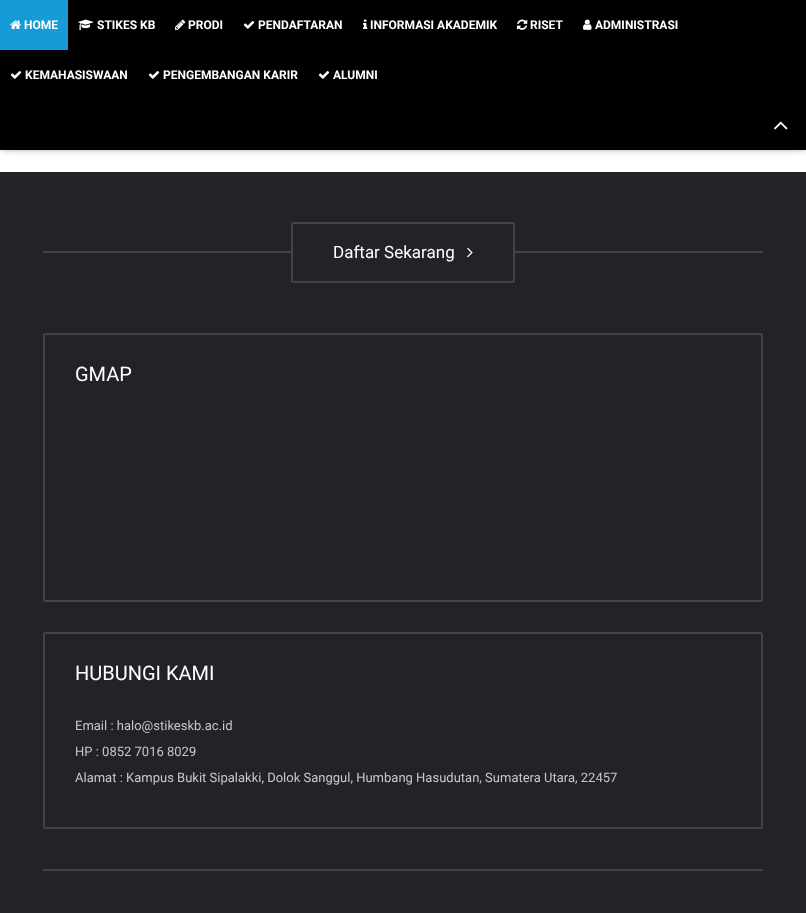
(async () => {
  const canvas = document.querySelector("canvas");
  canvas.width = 806;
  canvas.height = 913;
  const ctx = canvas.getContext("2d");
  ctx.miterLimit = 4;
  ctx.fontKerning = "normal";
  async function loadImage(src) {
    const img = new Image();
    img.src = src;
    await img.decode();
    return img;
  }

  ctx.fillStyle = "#ffffff";
  ctx.fillRect(0, 0, 806, 913);
  ctx.fillStyle = "rgba(0, 0, 0, 0.4)";
  ctx.filter = "blur(3.5px)";
  ctx.beginPath();
  ctx.rect(1, 1, 804, 148);
  ctx.fill();
  ctx.filter = "none";
  ctx.fillStyle = "#000000";
  ctx.fillRect(0, 0, 806, 150);
  ctx.fillStyle = "#179bd7";
  ctx.fillRect(0, 0, 68, 50);
  ctx.drawImage(await loadImage("img/1.png"), 10, 20, 11, 9);
  ctx.drawImage(await loadImage("img/2.png"), 78, 19, 16, 11);
  ctx.drawImage(await loadImage("img/3.png"), 175, 19, 11, 11);
  ctx.drawImage(await loadImage("img/4.png"), 243, 21, 12, 8);
  ctx.drawImage(await loadImage("img/5.png"), 363, 19, 5, 10);
  ctx.drawImage(await loadImage("img/6.png"), 517, 19, 11, 11);
  ctx.drawImage(await loadImage("img/7.png"), 583, 19, 9, 11);
  ctx.drawImage(await loadImage("img/4.png"), 10, 71, 12, 8);
  ctx.drawImage(await loadImage("img/4.png"), 148, 71, 12, 8);
  ctx.drawImage(await loadImage("img/4.png"), 318, 71, 12, 8);
  ctx.drawImage(await loadImage("img/8.png"), 774, 121, 14, 9);
  ctx.fillStyle = "#212327";
  ctx.fillRect(0, 172, 806, 741);
  ctx.fillStyle = "#424447";
  ctx.fillRect(43, 251, 248, 2);
  ctx.beginPath();
  ctx.roundRect(292, 223, 222, 59, 1);
  ctx.strokeStyle = "#424447";
  ctx.lineWidth = 2;
  ctx.stroke();
  ctx.drawImage(await loadImage("img/9.png"), 467, 247, 6, 11);
  ctx.fillRect(515, 251, 248, 2);
  ctx.beginPath();
  ctx.roundRect(44, 334, 718, 267, 1);
  ctx.stroke();
  ctx.beginPath();
  ctx.roundRect(44, 633, 718, 195, 1);
  ctx.stroke();
  ctx.fillRect(43, 869, 720, 2);
  ctx.font = "bold 12px Roboto";
  ctx.fillStyle = "#ffffff";
  for (const [text, x, y] of [
    ["HOME", 24, 29],
    ["STIKES KB", 97, 29],
    ["PRODI", 188, 29],
    ["PENDAFTARAN", 258, 29],
    ["INFORMASI AKADEMIK", 370, 29],
    ["RISET", 530, 29],
    ["ADMINISTRASI", 595, 29],
    ["KEMAHASISWAAN", 25, 79],
    ["PENGEMBANGAN KARIR", 163, 79],
    ["ALUMNI", 333, 79],
  ]) {
    ctx.fillText(text, x, y);
  }
  ctx.font = "17px Roboto";
  ctx.fillText("Daftar Sekarang", 333, 258);
  ctx.font = "20px Roboto";
  ctx.fillText("GMAP", 75, 381);
  ctx.fillText("HUBUNGI KAMI", 75, 680);
  ctx.font = "13px Roboto";
  ctx.fillStyle = "#c8c8c9";
  for (const [text, x, y] of [
    ["Email : halo@stikeskb.ac.id", 75, 730],
    ["HP : 0852 7016 8029", 75, 756],
    ["Alamat : Kampus Bukit Sipalakki, Dolok Sanggul, Humbang Hasudutan, Sumatera Utara, 22457", 75, 782],
  ]) {
    ctx.fillText(text, x, y);
  }
})();
